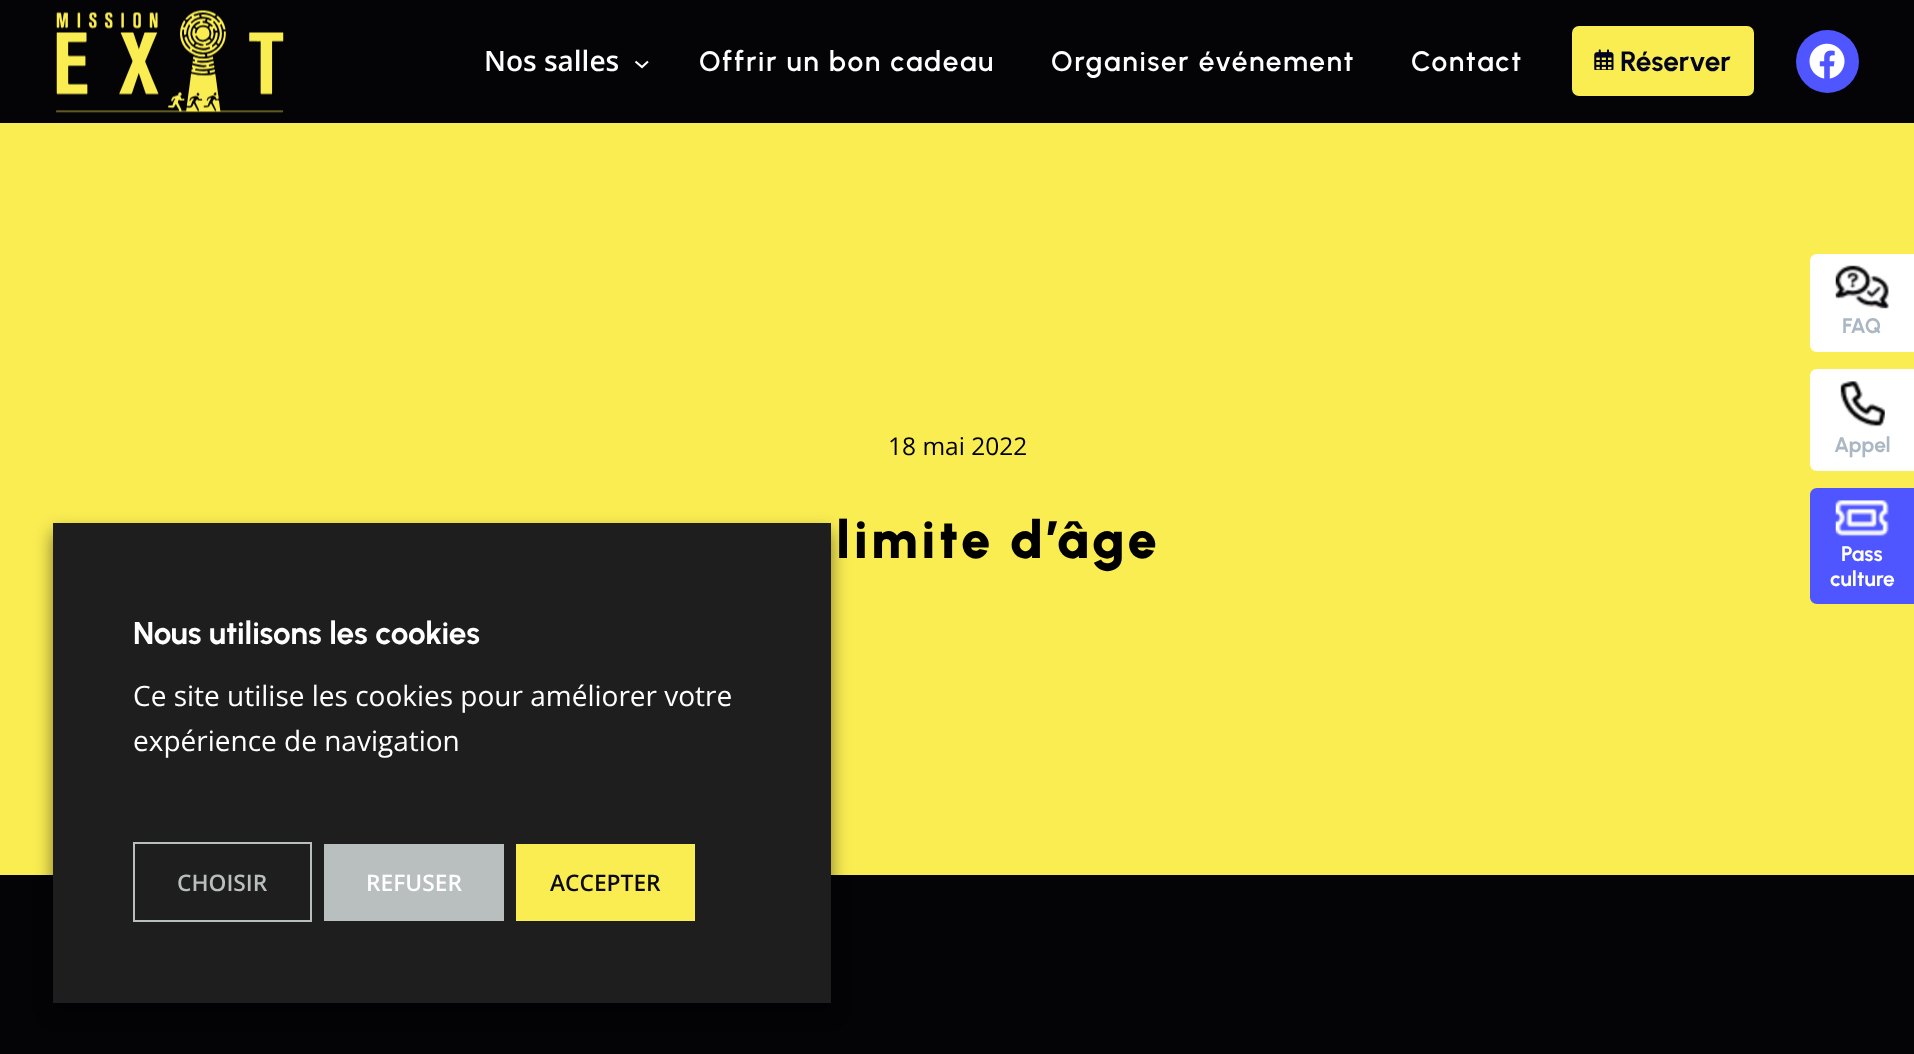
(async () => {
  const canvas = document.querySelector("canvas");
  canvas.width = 1914;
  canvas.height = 1054;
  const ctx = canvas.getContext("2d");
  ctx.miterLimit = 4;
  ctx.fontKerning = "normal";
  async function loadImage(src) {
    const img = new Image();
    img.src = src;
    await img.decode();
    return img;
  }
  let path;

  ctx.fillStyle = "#040407";
  ctx.fillRect(0, 0, 1914, 1054);
  ctx.drawImage(await loadImage("img/1.png"), 56, 10, 228, 103);
  path = new Path2D("M635.5 61.5L642 67L648 61.5");
  ctx.strokeStyle = "#ffffff";
  ctx.lineWidth = 2.1;
  ctx.stroke(path);
  ctx.fillStyle = "#faed52";
  ctx.beginPath();
  ctx.roundRect(1572, 26, 182, 70, 7);
  ctx.fill();
  ctx.drawImage(await loadImage("img/2.png"), 1594, 49, 20, 21);
  ctx.fillStyle = "#5056ff";
  ctx.beginPath();
  ctx.arc(1827.5, 61.5, 31.5, 0, Math.PI * 2);
  ctx.fill();
  ctx.drawImage(await loadImage("img/3.png"), 1809, 43, 36, 36);
  ctx.fillStyle = "#faed52";
  ctx.fillRect(0, 123, 1914, 752);
  ctx.fillStyle = "#ffffff";
  path = new Path2D("M1817 254H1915V352H1817C1813 352 1810 349 1810 345V261C1810 257 1813 254 1817 254Z");
  ctx.fill(path);
  ctx.drawImage(await loadImage("img/4.png"), 1835, 265, 54, 44);
  path = new Path2D("M1817 369H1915V471H1817C1813 471 1810 468 1810 464V376C1810 372 1813 369 1817 369Z");
  ctx.fill(path);
  ctx.drawImage(await loadImage("img/5.png"), 1840, 381, 45, 46);
  ctx.fillStyle = "#5056ff";
  path = new Path2D("M1817 488H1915V604H1817C1813 604 1810 601 1810 597V495C1810 491 1813 488 1817 488Z");
  ctx.fill(path);
  ctx.drawImage(await loadImage("img/6.png"), 1835, 500, 54, 37);
  ctx.fillStyle = "rgba(0, 0, 0, 0.5)";
  ctx.filter = "blur(9px)";
  ctx.beginPath();
  ctx.rect(53, 532, 778, 480);
  ctx.fill();
  ctx.filter = "none";
  ctx.fillStyle = "#1e1e1e";
  ctx.fillRect(53, 523, 778, 480);
  ctx.strokeStyle = "#b9bfbe";
  ctx.lineWidth = 2;
  ctx.strokeRect(134, 843, 177, 78);
  ctx.fillStyle = "#b9bfbe";
  ctx.fillRect(324, 844, 180, 77);
  ctx.fillStyle = "#faed52";
  ctx.fillRect(516, 844, 179, 77);
  ctx.font = "600 28px Open Sans";
  ctx.fillStyle = "#ffffff";
  ctx.fillText("Nos salles", 484, 71);
  ctx.letterSpacing = "1.75px";
  ctx.font = "600 28px Urbanist";
  for (const [text, x, y] of [
    ["Offrir un bon cadeau", 699, 71],
    ["Organiser événement", 1051, 71],
    ["Contact", 1411, 71],
  ]) {
    ctx.fillText(text, x, y);
  }
  ctx.letterSpacing = "0px";
  ctx.font = "bold 28px Urbanist";
  ctx.fillStyle = "#030520";
  ctx.fillText("Réserver", 1620, 71);
  ctx.font = "bold 21px Urbanist";
  ctx.fillStyle = "#abb8c3";
  ctx.fillText("FAQ", 1842, 333);
  ctx.fillText("Appel", 1834, 452);
  ctx.fillStyle = "#ffffff";
  ctx.fillText("Pass", 1841, 561);
  ctx.fillText("culture", 1830, 586);
  ctx.font = "24.5px Open Sans";
  ctx.fillStyle = "#000000";
  ctx.fillText("18 mai 2022", 888, 455);
  ctx.letterSpacing = "3.5px";
  ctx.font = "900 52.5px Urbanist";
  ctx.fillText("limite d’âge", 836, 558);
  ctx.letterSpacing = "0px";
  ctx.font = "bold 31.5px Urbanist";
  ctx.fillStyle = "#ffffff";
  ctx.fillText("Nous utilisons les cookies", 133, 644);
  ctx.font = "28px Open Sans";
  ctx.fillText("Ce site utilise les cookies pour améliorer votre", 133, 706);
  ctx.fillText("expérience de navigation", 133, 751);
  ctx.font = "600 22.75px Open Sans";
  ctx.fillStyle = "#b9bfbe";
  ctx.fillText("CHOISIR", 177, 891);
  ctx.fillStyle = "#ffffff";
  ctx.fillText("REFUSER", 366, 891);
  ctx.fillStyle = "#0a0a0a";
  ctx.fillText("ACCEPTER", 550, 891);
})();
